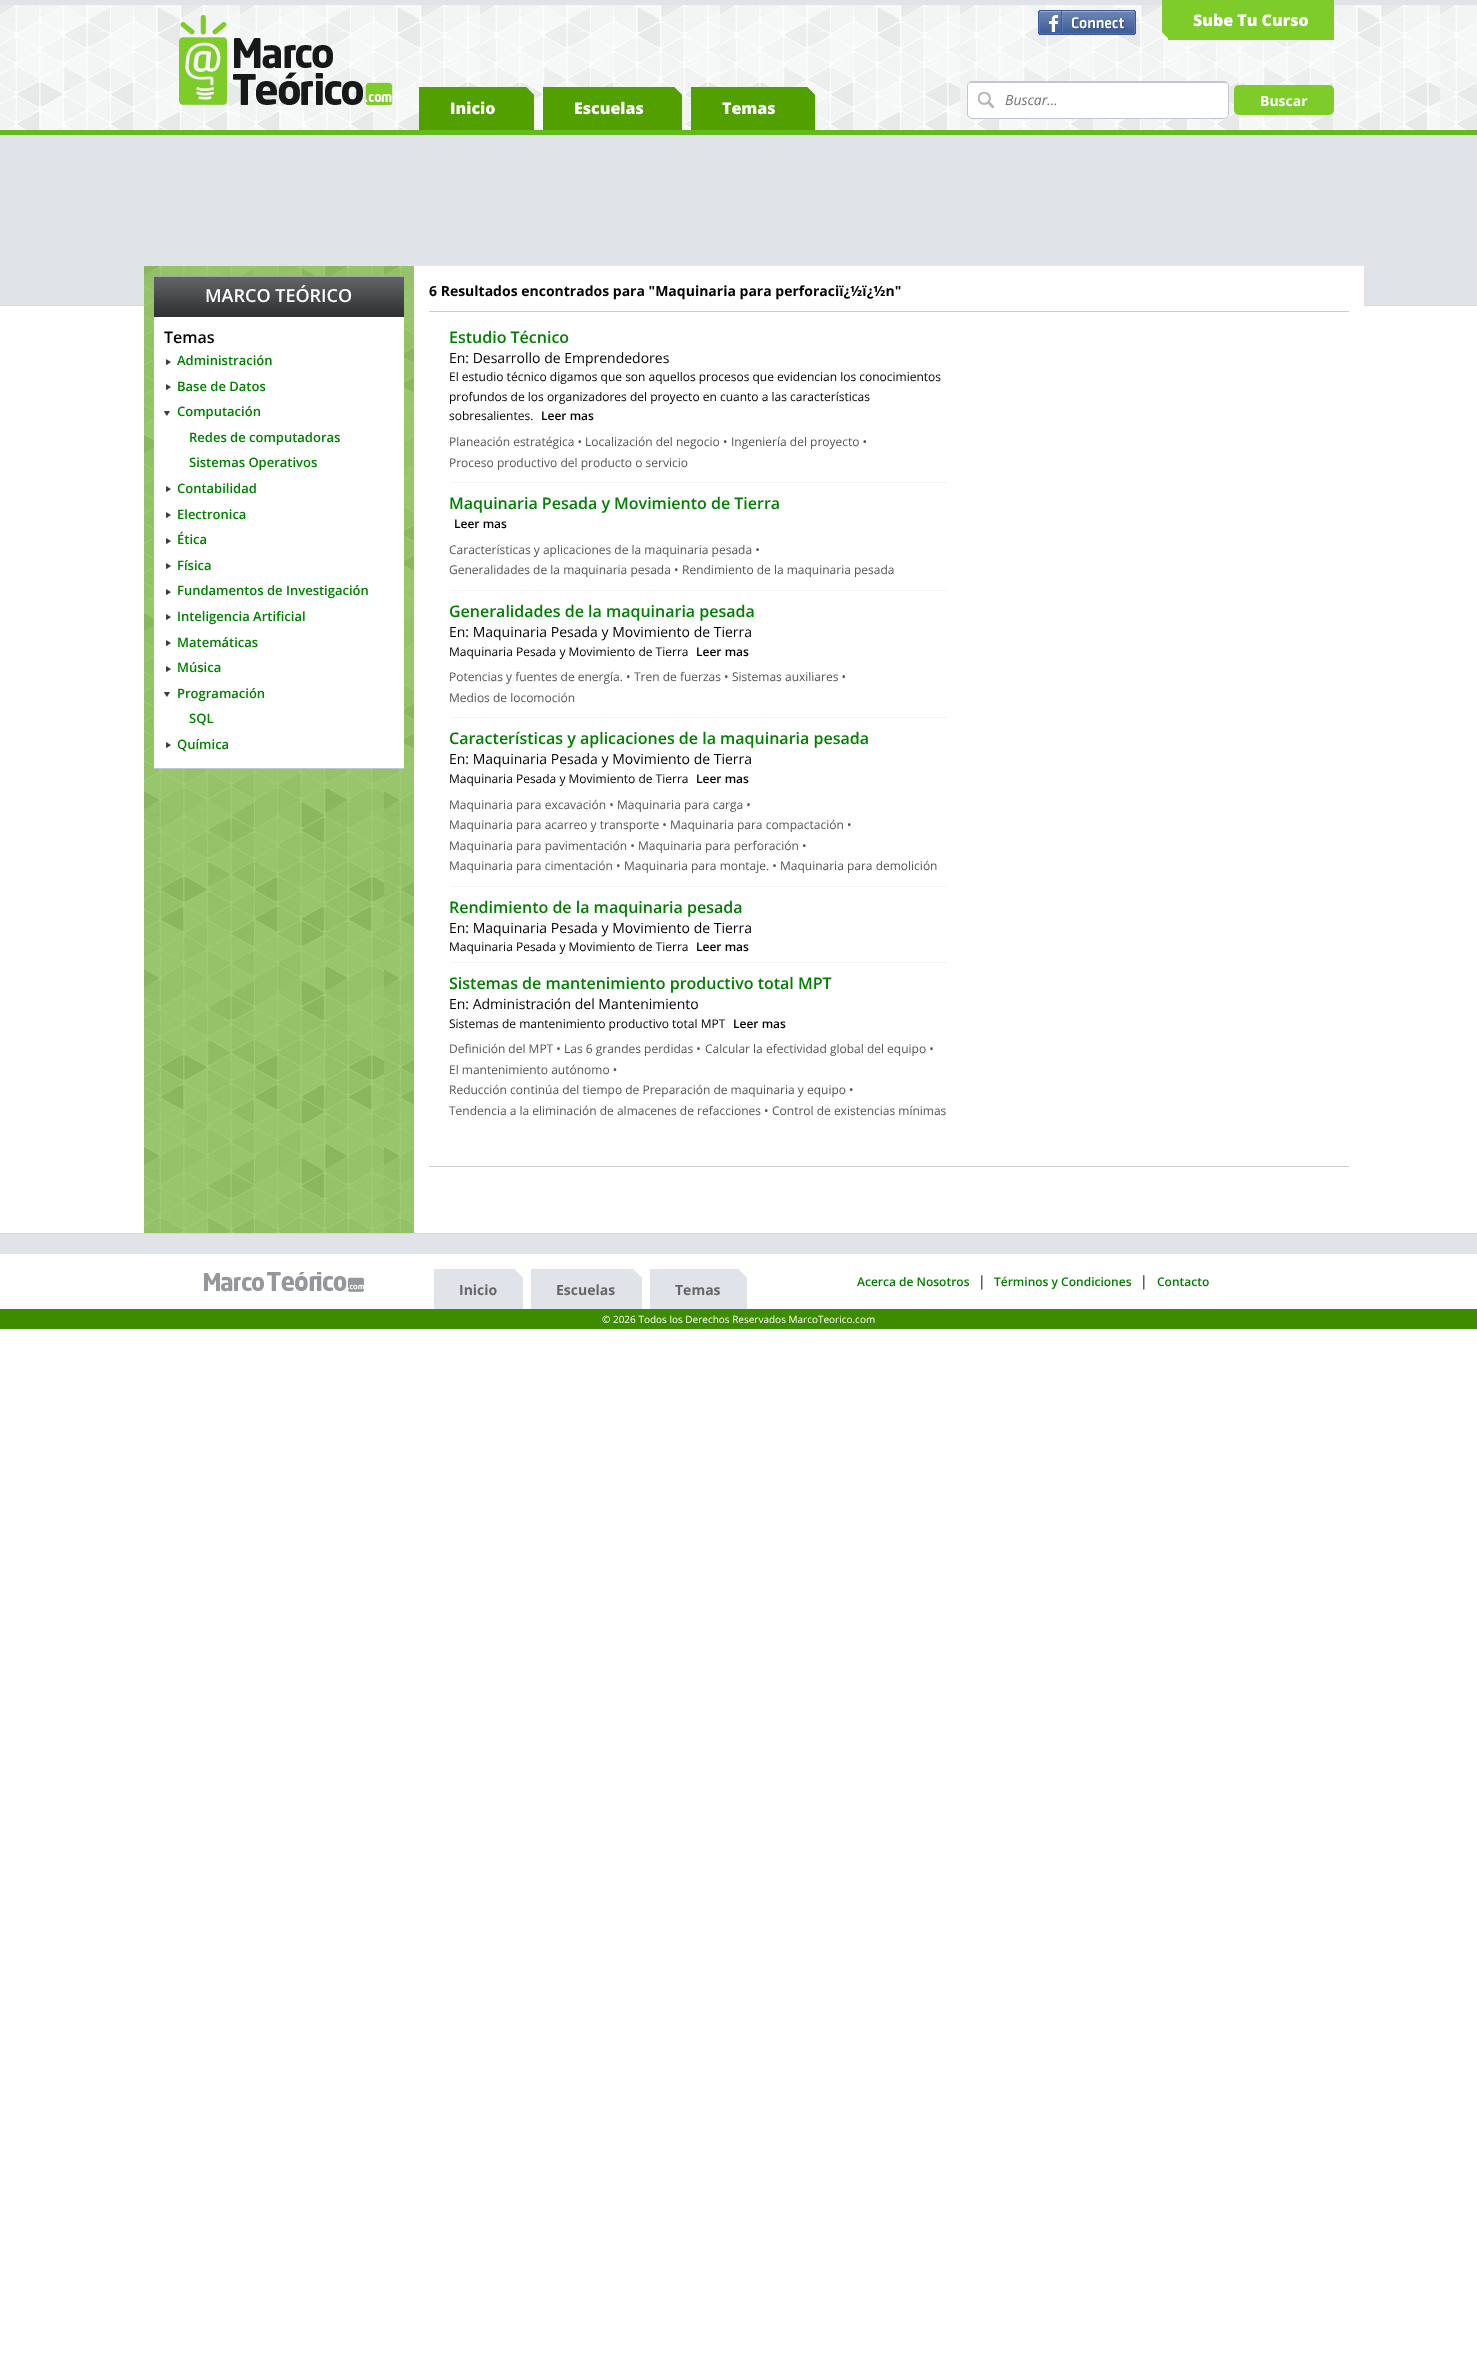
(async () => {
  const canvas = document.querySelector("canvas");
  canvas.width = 1477;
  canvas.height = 2371;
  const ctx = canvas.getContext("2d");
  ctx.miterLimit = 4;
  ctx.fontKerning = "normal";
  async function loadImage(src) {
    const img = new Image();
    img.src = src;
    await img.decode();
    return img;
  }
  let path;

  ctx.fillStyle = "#ffffff";
  ctx.fillRect(0, 0, 1477, 2371);
  ctx.fillStyle = "#fafbfb";
  ctx.fillRect(0, 5, 1477, 125);
  ctx.drawImage(await loadImage("img/1.png"), 0, 5, 1477, 125);
  ctx.fillStyle = "#e0e4e9";
  ctx.fillRect(0, 0, 1477, 5);
  ctx.fillStyle = "#62bb1b";
  ctx.fillRect(0, 130, 1477, 5);
  ctx.drawImage(await loadImage("img/2.png"), 179, 15, 214, 90);
  ctx.drawImage(await loadImage("img/3.png"), 1038, 10, 98, 25);
  ctx.drawImage(await loadImage("img/4.png"), 1162, 0, 6, 39);
  ctx.fillStyle = "#7dcc29";
  ctx.fillRect(1168, 0, 166, 40);
  ctx.fillStyle = "#51a000";
  ctx.fillRect(419, 87, 107, 43);
  ctx.drawImage(await loadImage("img/5.png"), 526, 87, 8, 43);
  ctx.fillRect(543, 87, 131, 43);
  ctx.drawImage(await loadImage("img/6.png"), 674, 87, 8, 43);
  ctx.fillRect(691, 87, 116, 43);
  ctx.drawImage(await loadImage("img/7.png"), 807, 87, 8, 43);
  ctx.fillStyle = "#ffffff";
  path = new Path2D("M972 83H1224C1226 83 1228 84 1228 86V114C1228 116 1226 118 1224 118H972C970 118 968 116 968 114V86C968 84 970 83 972 83Z");
  ctx.fill(path);
  ctx.beginPath();
  ctx.roundRect(967.5, 81.5, 261, 37, 4.5);
  ctx.strokeStyle = "#c3c6d0";
  ctx.stroke();
  ctx.fillStyle = "#c3c6d0";
  ctx.fillRect(970, 82, 257, 1);
  ctx.drawImage(await loadImage("img/8.png"), 978, 92, 16, 16);
  ctx.fillStyle = "#7dcc29";
  ctx.beginPath();
  ctx.roundRect(1234, 85, 100, 30, 5);
  ctx.fill();
  for (const [x, y, w, h, color] of [
    [0, 135, 1477, 170, "#e0e4e9"],
    [0, 305, 1477, 1, "#d1dada"],
    [144, 266, 270, 967, "#51a000"],
  ]) {
    ctx.fillStyle = color;
    ctx.fillRect(x, y, w, h);
  }
  ctx.drawImage(await loadImage("img/9.png"), 144, 266, 270, 967);
  ctx.fillStyle = "#ffffff";
  ctx.fillRect(154, 317, 250, 451);
  ctx.drawImage(await loadImage("img/10.png"), 154, 277, 250, 40);
  ctx.fillStyle = "#a4a4a4";
  ctx.fillRect(154, 276, 250, 1);
  ctx.fillStyle = "#bec6d0";
  ctx.fillRect(154, 768, 250, 1);
  ctx.drawImage(await loadImage("img/11.png"), 166, 359, 5, 6);
  ctx.drawImage(await loadImage("img/11.png"), 166, 384, 5, 6);
  ctx.drawImage(await loadImage("img/12.png"), 164, 411, 6, 5);
  ctx.drawImage(await loadImage("img/11.png"), 166, 486, 5, 6);
  ctx.drawImage(await loadImage("img/11.png"), 166, 512, 5, 6);
  ctx.drawImage(await loadImage("img/11.png"), 166, 538, 5, 6);
  ctx.drawImage(await loadImage("img/11.png"), 166, 563, 5, 6);
  ctx.drawImage(await loadImage("img/11.png"), 166, 589, 5, 6);
  ctx.drawImage(await loadImage("img/11.png"), 166, 614, 5, 6);
  ctx.drawImage(await loadImage("img/11.png"), 166, 640, 5, 6);
  ctx.drawImage(await loadImage("img/11.png"), 166, 666, 5, 6);
  ctx.drawImage(await loadImage("img/12.png"), 164, 692, 6, 5);
  ctx.drawImage(await loadImage("img/11.png"), 166, 742, 5, 6);
  for (const [x, y, w, h, color] of [
    [414, 266, 950, 40, "#ffffff"],
    [429, 311, 920, 1, "#cccccc"],
    [452, 482, 495, 1, "#f4f4f4"],
    [452, 590, 495, 1, "#f4f4f4"],
    [452, 717, 495, 1, "#f4f4f4"],
    [452, 886, 495, 1, "#f4f4f4"],
    [452, 962, 495, 1, "#f4f4f4"],
    [429, 1166, 920, 1, "#cccccc"],
    [0, 1233, 1477, 1, "#d1dada"],
    [0, 1309, 1477, 20, "#3d8c00"],
    [0, 1234, 1477, 20, "#e0e4e9"],
  ]) {
    ctx.fillStyle = color;
    ctx.fillRect(x, y, w, h);
  }
  ctx.drawImage(await loadImage("img/13.png"), 204, 1272, 160, 20);
  ctx.fillRect(434, 1269, 81, 40);
  ctx.drawImage(await loadImage("img/14.png"), 515, 1270, 8, 39);
  ctx.fillRect(531, 1269, 103, 40);
  ctx.drawImage(await loadImage("img/14.png"), 634, 1270, 8, 39);
  ctx.fillRect(650, 1269, 89, 40);
  ctx.drawImage(await loadImage("img/14.png"), 739, 1270, 8, 39);
  ctx.font = "800 16px Open Sans";
  ctx.fillStyle = "#ffffff";
  for (const [text, x, y] of [
    ["Sube Tu Curso", 1193, 26],
    ["Inicio", 450, 114],
    ["Escuelas", 574, 114],
    ["Temas", 722, 114],
  ]) {
    ctx.fillText(text, x, y);
  }
  ctx.font = "italic 14px Open Sans";
  ctx.fillStyle = "#757575";
  ctx.fillText("Buscar...", 1005, 105);
  ctx.font = "bold 14px Open Sans";
  ctx.fillStyle = "#ffffff";
  ctx.fillText("Buscar", 1260, 106);
  ctx.font = "600 18px Open Sans";
  ctx.fillText("MARCO TEÓRICO", 205, 302);
  ctx.font = "600 16px Open Sans";
  ctx.fillStyle = "#000000";
  ctx.fillText("Temas", 164, 343);
  ctx.font = "600 13px Open Sans";
  ctx.fillStyle = "#008000";
  for (const [text, x, y] of [
    ["Administración", 177, 365],
    ["Base de Datos", 177, 391],
    ["Computación", 177, 416],
    ["Redes de computadoras", 189, 442],
    ["Sistemas Operativos", 189, 467],
    ["Contabilidad", 177, 493],
    ["Electronica", 177, 519],
    ["Ética", 177, 544],
    ["Física", 177, 570],
    ["Fundamentos de Investigación", 177, 595],
    ["Inteligencia Artificial", 177, 621],
    ["Matemáticas", 177, 647],
    ["Música", 177, 672],
    ["Programación", 177, 698],
    ["SQL", 189, 723],
    ["Química", 177, 749],
  ]) {
    ctx.fillText(text, x, y);
  }
  ctx.font = "bold 14px Open Sans";
  ctx.fillStyle = "#000000";
  ctx.fillText("6 Resultados encontrados para \"Maquinaria para perforaciï¿½ï¿½n\"", 429, 296);
  ctx.font = "600 16px Open Sans";
  ctx.fillStyle = "#008000";
  ctx.fillText("Estudio Técnico", 449, 343);
  ctx.font = "14px Open Sans";
  ctx.fillStyle = "#000000";
  ctx.fillText("En: Desarrollo de Emprendedores", 449, 363);
  ctx.font = "12px Open Sans";
  for (const [text, x, y] of [
    ["El estudio técnico digamos que son aquellos procesos que evidencian los conocimientos", 449, 381],
    ["profundos de los organizadores del proyecto en cuanto a las características", 449, 401],
    ["sobresalientes.", 449, 420],
  ]) {
    ctx.fillText(text, x, y);
  }
  ctx.font = "600 12px Open Sans";
  ctx.fillText("Leer mas", 541, 420);
  ctx.font = "12px Open Sans";
  ctx.fillStyle = "#555555";
  for (const [text, x, y] of [
    ["Planeación estratégica •", 449, 446],
    ["Localización del negocio •", 585, 446],
    ["Ingeniería del proyecto •", 731, 446],
    ["Proceso productivo del producto o servicio", 449, 467],
  ]) {
    ctx.fillText(text, x, y);
  }
  ctx.font = "600 16px Open Sans";
  ctx.fillStyle = "#008000";
  ctx.fillText("Maquinaria Pesada y Movimiento de Tierra", 449, 509);
  ctx.font = "600 12px Open Sans";
  ctx.fillStyle = "#000000";
  ctx.fillText("Leer mas", 454, 528);
  ctx.font = "12px Open Sans";
  ctx.fillStyle = "#555555";
  for (const [text, x, y] of [
    ["Características y aplicaciones de la maquinaria pesada •", 449, 554],
    ["Generalidades de la maquinaria pesada •", 449, 574],
    ["Rendimiento de la maquinaria pesada", 682, 574],
  ]) {
    ctx.fillText(text, x, y);
  }
  ctx.font = "600 16px Open Sans";
  ctx.fillStyle = "#008000";
  ctx.fillText("Generalidades de la maquinaria pesada", 449, 617);
  ctx.font = "14px Open Sans";
  ctx.fillStyle = "#000000";
  ctx.fillText("En: Maquinaria Pesada y Movimiento de Tierra", 449, 637);
  ctx.font = "12px Open Sans";
  ctx.fillText("Maquinaria Pesada y Movimiento de Tierra", 449, 656);
  ctx.font = "600 12px Open Sans";
  ctx.fillText("Leer mas", 696, 656);
  ctx.font = "12px Open Sans";
  ctx.fillStyle = "#555555";
  for (const [text, x, y] of [
    ["Potencias y fuentes de energía. •", 449, 681],
    ["Tren de fuerzas •", 634, 681],
    ["Sistemas auxiliares •", 732, 681],
    ["Medios de locomoción", 449, 702],
  ]) {
    ctx.fillText(text, x, y);
  }
  ctx.font = "600 16px Open Sans";
  ctx.fillStyle = "#008000";
  ctx.fillText("Características y aplicaciones de la maquinaria pesada", 449, 744);
  ctx.font = "14px Open Sans";
  ctx.fillStyle = "#000000";
  ctx.fillText("En: Maquinaria Pesada y Movimiento de Tierra", 449, 764);
  ctx.font = "12px Open Sans";
  ctx.fillText("Maquinaria Pesada y Movimiento de Tierra", 449, 783);
  ctx.font = "600 12px Open Sans";
  ctx.fillText("Leer mas", 696, 783);
  ctx.font = "12px Open Sans";
  ctx.fillStyle = "#555555";
  for (const [text, x, y] of [
    ["Maquinaria para excavación •", 449, 809],
    ["Maquinaria para carga •", 617, 809],
    ["Maquinaria para acarreo y transporte •", 449, 829],
    ["Maquinaria para compactación •", 670, 829],
    ["Maquinaria para pavimentación •", 449, 850],
    ["Maquinaria para perforación •", 638, 850],
    ["Maquinaria para cimentación •", 449, 870],
    ["Maquinaria para montaje. •", 624, 870],
    ["Maquinaria para demolición", 780, 870],
  ]) {
    ctx.fillText(text, x, y);
  }
  ctx.font = "600 16px Open Sans";
  ctx.fillStyle = "#008000";
  ctx.fillText("Rendimiento de la maquinaria pesada", 449, 913);
  ctx.font = "14px Open Sans";
  ctx.fillStyle = "#000000";
  ctx.fillText("En: Maquinaria Pesada y Movimiento de Tierra", 449, 933);
  ctx.font = "12px Open Sans";
  ctx.fillText("Maquinaria Pesada y Movimiento de Tierra", 449, 951);
  ctx.font = "600 12px Open Sans";
  ctx.fillText("Leer mas", 696, 951);
  ctx.font = "600 16px Open Sans";
  ctx.fillStyle = "#008000";
  ctx.fillText("Sistemas de mantenimiento productivo total MPT", 449, 989);
  ctx.font = "14px Open Sans";
  ctx.fillStyle = "#000000";
  ctx.fillText("En: Administración del Mantenimiento", 449, 1009);
  ctx.font = "12px Open Sans";
  ctx.fillText("Sistemas de mantenimiento productivo total MPT", 449, 1028);
  ctx.font = "600 12px Open Sans";
  ctx.fillText("Leer mas", 733, 1028);
  ctx.font = "12px Open Sans";
  ctx.fillStyle = "#555555";
  for (const [text, x, y] of [
    ["Definición del MPT •", 449, 1053],
    ["Las 6 grandes perdidas •", 564, 1053],
    ["Calcular la efectividad global del equipo •", 705, 1053],
    ["El mantenimiento autónomo •", 449, 1074],
    ["Reducción continúa del tiempo de Preparación de maquinaria y equipo •", 449, 1094],
    ["Tendencia a la eliminación de almacenes de refacciones •", 449, 1115],
    ["Control de existencias mínimas", 772, 1115],
  ]) {
    ctx.fillText(text, x, y);
  }
  ctx.font = "bold 14px Open Sans";
  ctx.fillStyle = "#666666";
  for (const [text, x, y] of [
    ["Inicio", 459, 1295],
    ["Escuelas", 556, 1295],
    ["Temas", 675, 1295],
  ]) {
    ctx.fillText(text, x, y);
  }
  ctx.font = "600 12px Open Sans";
  ctx.fillStyle = "#008000";
  ctx.fillText("Acerca de Nosotros", 857, 1286);
  ctx.font = "14px Open Sans";
  ctx.fillStyle = "#000000";
  ctx.fillText("|", 978, 1286);
  ctx.font = "600 12px Open Sans";
  ctx.fillStyle = "#008000";
  ctx.fillText("Términos y Condiciones", 994, 1286);
  ctx.font = "14px Open Sans";
  ctx.fillStyle = "#000000";
  ctx.fillText("|", 1140, 1286);
  ctx.font = "600 12px Open Sans";
  ctx.fillStyle = "#008000";
  ctx.fillText("Contacto", 1157, 1286);
  ctx.font = "10px Open Sans";
  ctx.fillStyle = "#ffffff";
  ctx.fillText("© 2026 Todos los Derechos Reservados MarcoTeorico.com", 602, 1323);
})();
